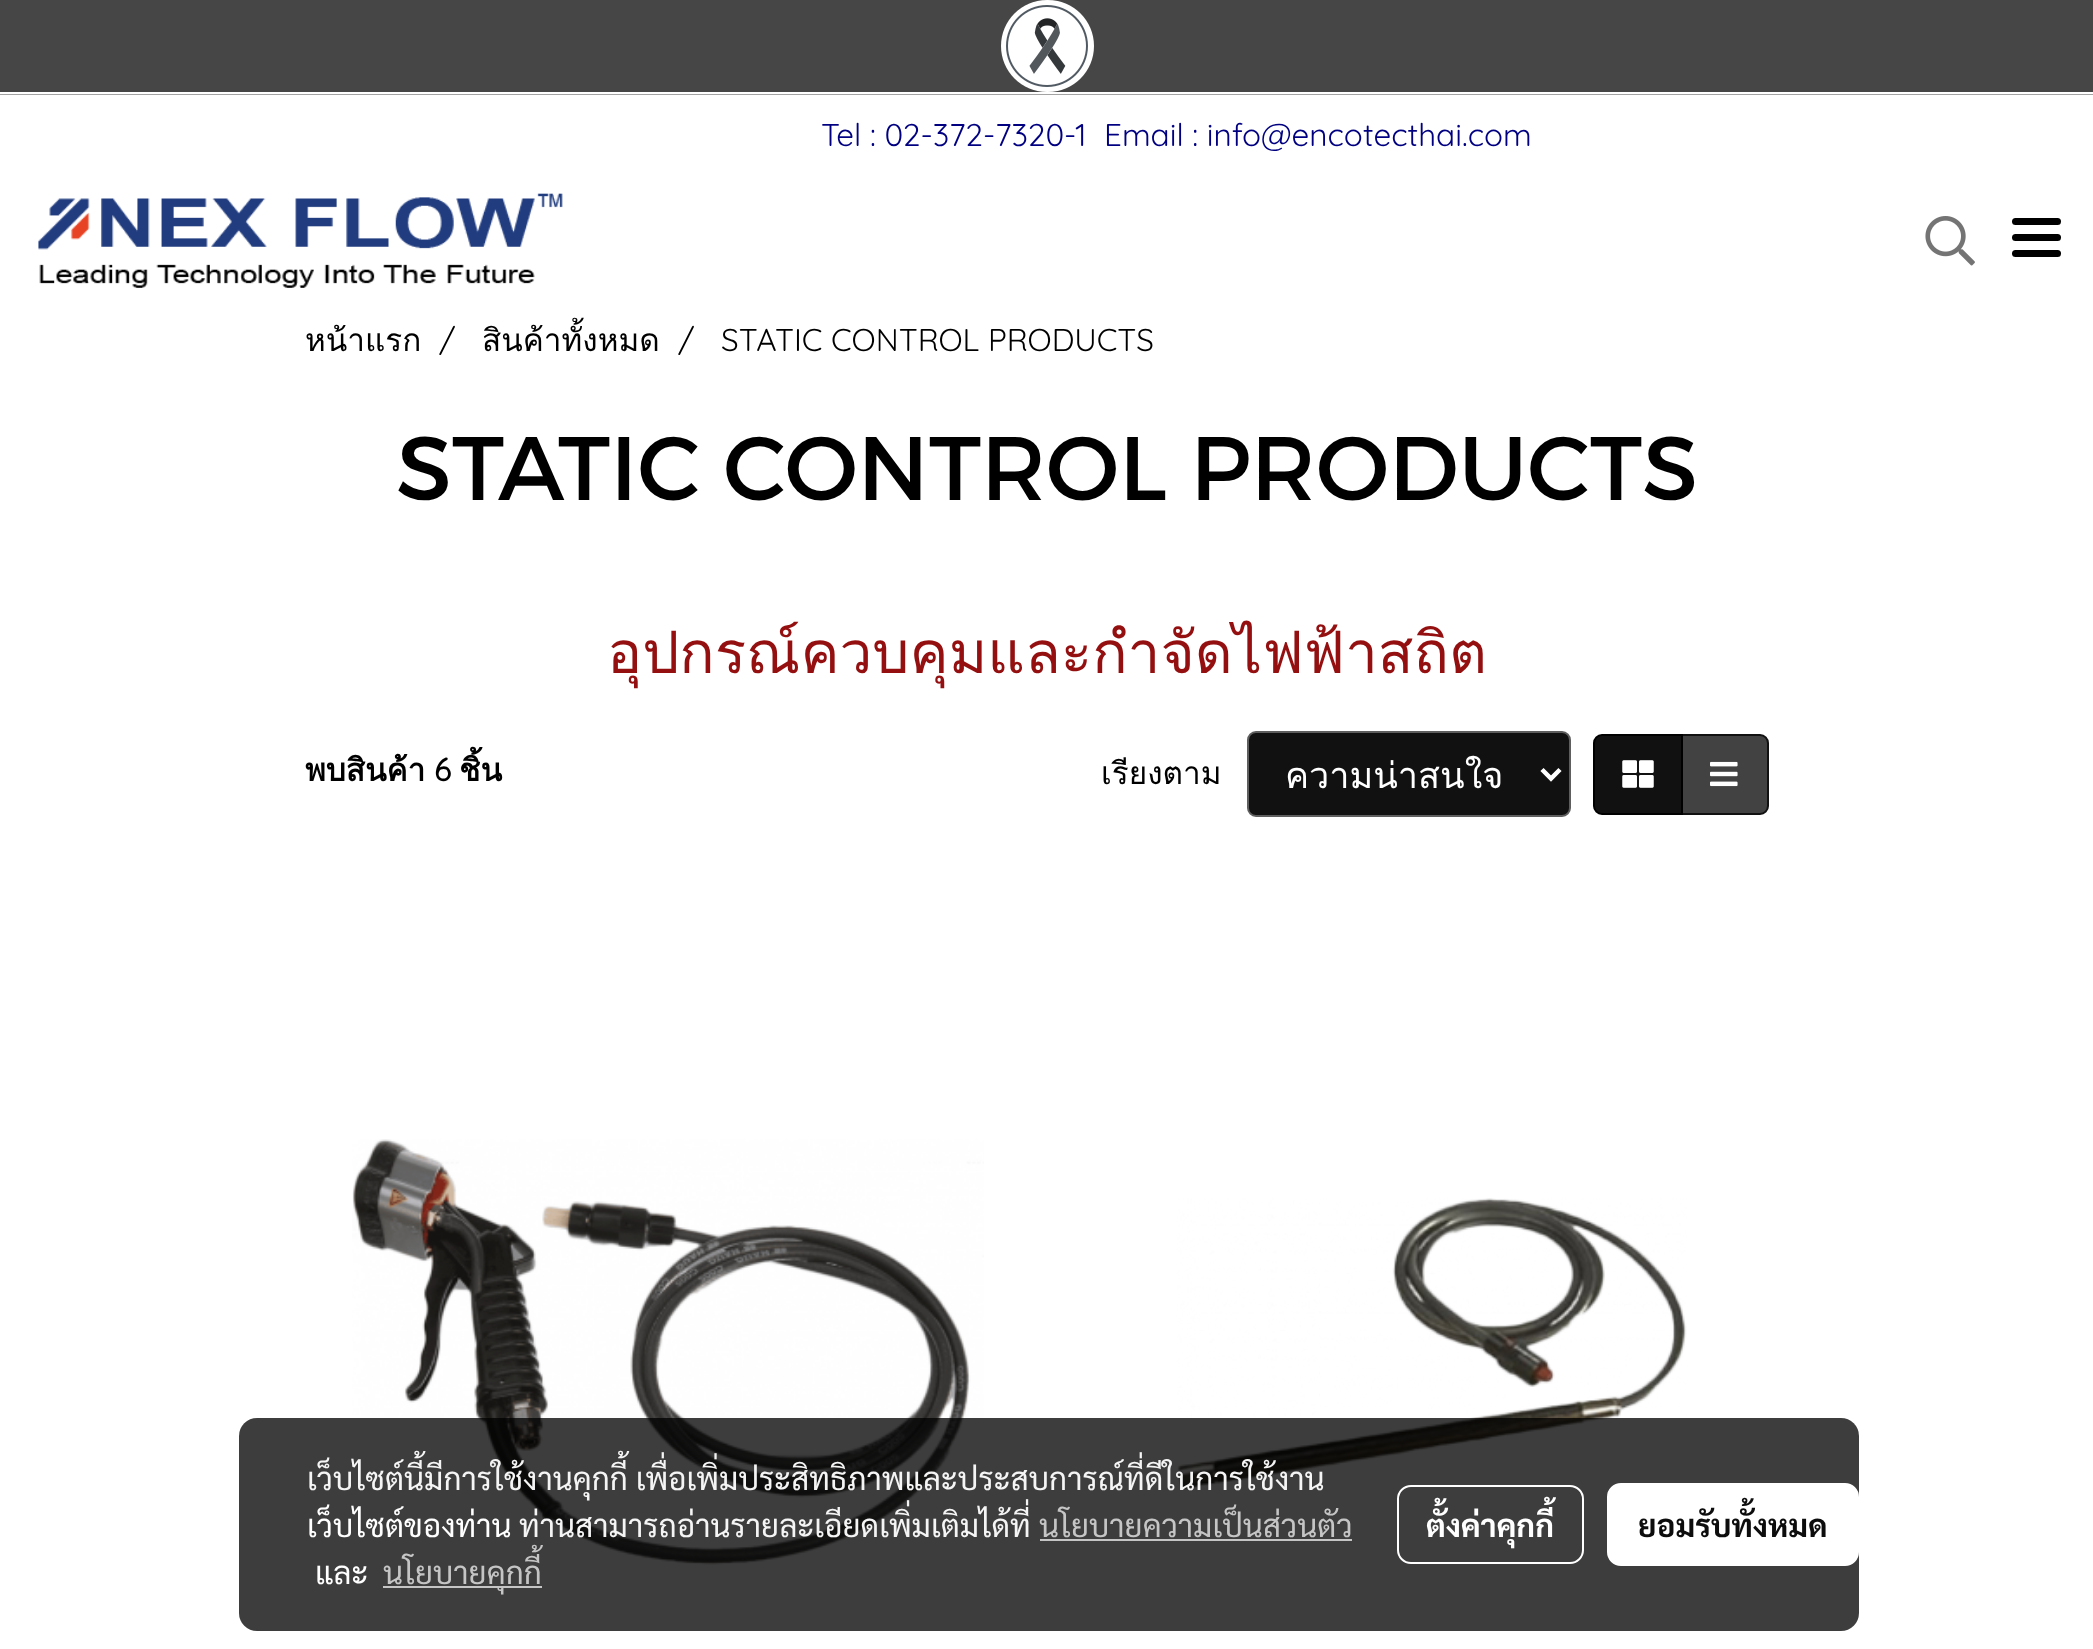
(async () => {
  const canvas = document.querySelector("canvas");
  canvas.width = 2093;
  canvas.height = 1649;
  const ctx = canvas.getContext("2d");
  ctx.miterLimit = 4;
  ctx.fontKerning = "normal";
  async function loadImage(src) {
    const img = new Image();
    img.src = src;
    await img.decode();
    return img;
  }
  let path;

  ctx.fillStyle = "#ffffff";
  ctx.fillRect(0, 0, 2093, 1649);
  ctx.fillStyle = "#464646";
  ctx.fillRect(0, 0, 2093, 92);
  ctx.drawImage(await loadImage("img/1.png"), 1001, 0, 93, 92);
  ctx.fillStyle = "#a3a3a3";
  ctx.fillRect(0, 94, 2093, 1);
  ctx.drawImage(await loadImage("img/2.png"), 38, 193, 525, 95);
  ctx.drawImage(await loadImage("img/3.png"), 1925, 216, 50, 50);
  ctx.fillStyle = "#000000";
  ctx.beginPath();
  ctx.roundRect(2012, 234, 49, 7, 3.5);
  ctx.fill();
  ctx.beginPath();
  ctx.roundRect(2012, 218, 49, 7, 3.5);
  ctx.fill();
  ctx.beginPath();
  ctx.roundRect(2012, 250, 49, 7, 3.5);
  ctx.fill();
  ctx.fillStyle = "#111111";
  ctx.beginPath();
  ctx.roundRect(1248, 732, 322, 84, 8);
  ctx.fill();
  ctx.strokeStyle = "#5e5e5e";
  ctx.lineWidth = 2;
  ctx.stroke();
  path = new Path2D("M1542 769.5L1551 778.5L1560 769.5");
  ctx.strokeStyle = "#ffffff";
  ctx.lineWidth = 4.5;
  ctx.stroke(path);
  ctx.fillStyle = "#424242";
  ctx.beginPath();
  ctx.roundRect(1682, 735, 86, 79, [0, 8, 8, 0]);
  ctx.fill();
  ctx.strokeStyle = "#111111";
  ctx.lineWidth = 2;
  ctx.stroke();
  ctx.fillStyle = "#111111";
  ctx.beginPath();
  ctx.roundRect(1594, 735, 88, 79, [8, 0, 0, 8]);
  ctx.fill();
  ctx.strokeStyle = "#000000";
  ctx.stroke();
  ctx.drawImage(await loadImage("img/4.png"), 1622, 760, 32, 28);
  ctx.drawImage(await loadImage("img/5.png"), 1710, 761, 28, 26);
  ctx.drawImage(await loadImage("img/6.png"), 352, 1139, 632, 426);
  ctx.drawImage(await loadImage("img/7.png"), 1177, 1198, 510, 293);
  ctx.fillStyle = "rgba(0, 0, 0, 0.76)";
  ctx.beginPath();
  ctx.roundRect(239, 1418, 1620, 213, 18);
  ctx.fill();
  ctx.fillStyle = "#c5c5c5";
  ctx.fillRect(1040, 1539, 312, 2);
  ctx.fillRect(383, 1586, 159, 2);
  ctx.beginPath();
  ctx.roundRect(1398, 1486, 185, 77, 13);
  ctx.strokeStyle = "#ffffff";
  ctx.stroke();
  ctx.fillStyle = "#ffffff";
  ctx.beginPath();
  ctx.roundRect(1609.5, 1485.5, 247, 78, 11.5);
  ctx.fill();
  ctx.lineWidth = 5;
  ctx.stroke();
  ctx.font = "300 31.5px Quicksand";
  ctx.fillStyle = "#000080";
  ctx.fillText("Tel : 02-372-7320-1", 821, 146);
  ctx.fillText("Email : info@encotecthai.com", 1104, 146);
  ctx.font = "31.5px Loma";
  ctx.fillStyle = "#000000";
  ctx.fillText("หน้าแรก", 305, 351);
  ctx.font = "300 31.5px Quicksand";
  ctx.fillText("/", 439, 351);
  ctx.font = "31.5px Loma";
  ctx.fillText("สินค้าทั้งหมด", 482, 351);
  ctx.font = "300 31.5px Quicksand";
  ctx.fillText("/", 678, 351);
  ctx.fillText("STATIC CONTROL PRODUCTS", 721, 351);
  ctx.font = "90px Montserrat";
  ctx.fillText("STATIC CONTROL PRODUCTS", 396, 500);
  ctx.font = "58.5px Loma";
  ctx.fillStyle = "#941010";
  ctx.fillText("อุปกรณ์ควบคุมและกำจัดไฟฟ้าสถิต", 607, 673);
  ctx.font = "bold 31.5px Loma";
  ctx.fillStyle = "#000000";
  ctx.fillText("พบสินค้า", 305, 781);
  ctx.font = "bold 31.5px Quicksand";
  ctx.fillText("6", 434, 781);
  ctx.font = "bold 31.5px Loma";
  ctx.fillText("ชิ้น", 459, 781);
  ctx.font = "31.5px Loma";
  ctx.fillText("เรียงตาม", 1101, 784);
  ctx.font = "36px Loma";
  ctx.fillStyle = "#ffffff";
  ctx.fillText("ความน่าสนใจ", 1285, 788);
  ctx.font = "31.5px Sarabun";
  ctx.fillStyle = "#f5f5f5";
  ctx.fillText("เว็บไซต์นี้มีการใช้งานคุกกี้ เพื่อเพิ่มประสิทธิภาพและประสบการณ์ที่ดีในการใช้งาน", 307, 1490);
  ctx.fillStyle = "#ffffff";
  ctx.fillText("เว็บไซต์ของท่าน", 307, 1537);
  ctx.fillStyle = "#f5f5f5";
  ctx.fillText("ท่านสามารถอ่านรายละเอียดเพิ่มเติมได้ที่", 519, 1537);
  ctx.fillStyle = "#c5c5c5";
  ctx.fillText("นโยบายความเป็นส่วนตัว", 1039, 1537);
  ctx.fillStyle = "#ffffff";
  ctx.fillText("และ", 315, 1584);
  ctx.fillStyle = "#c5c5c5";
  ctx.fillText("นโยบายคุกกี้", 383, 1584);
  ctx.font = "bold 31.5px Sarabun";
  ctx.fillStyle = "#ffffff";
  ctx.fillText("ตั้งค่าคุกกี้", 1426, 1537);
  ctx.fillStyle = "#0d0d0d";
  ctx.fillText("ยอมรับทั้งหมด", 1638, 1537);
})();
